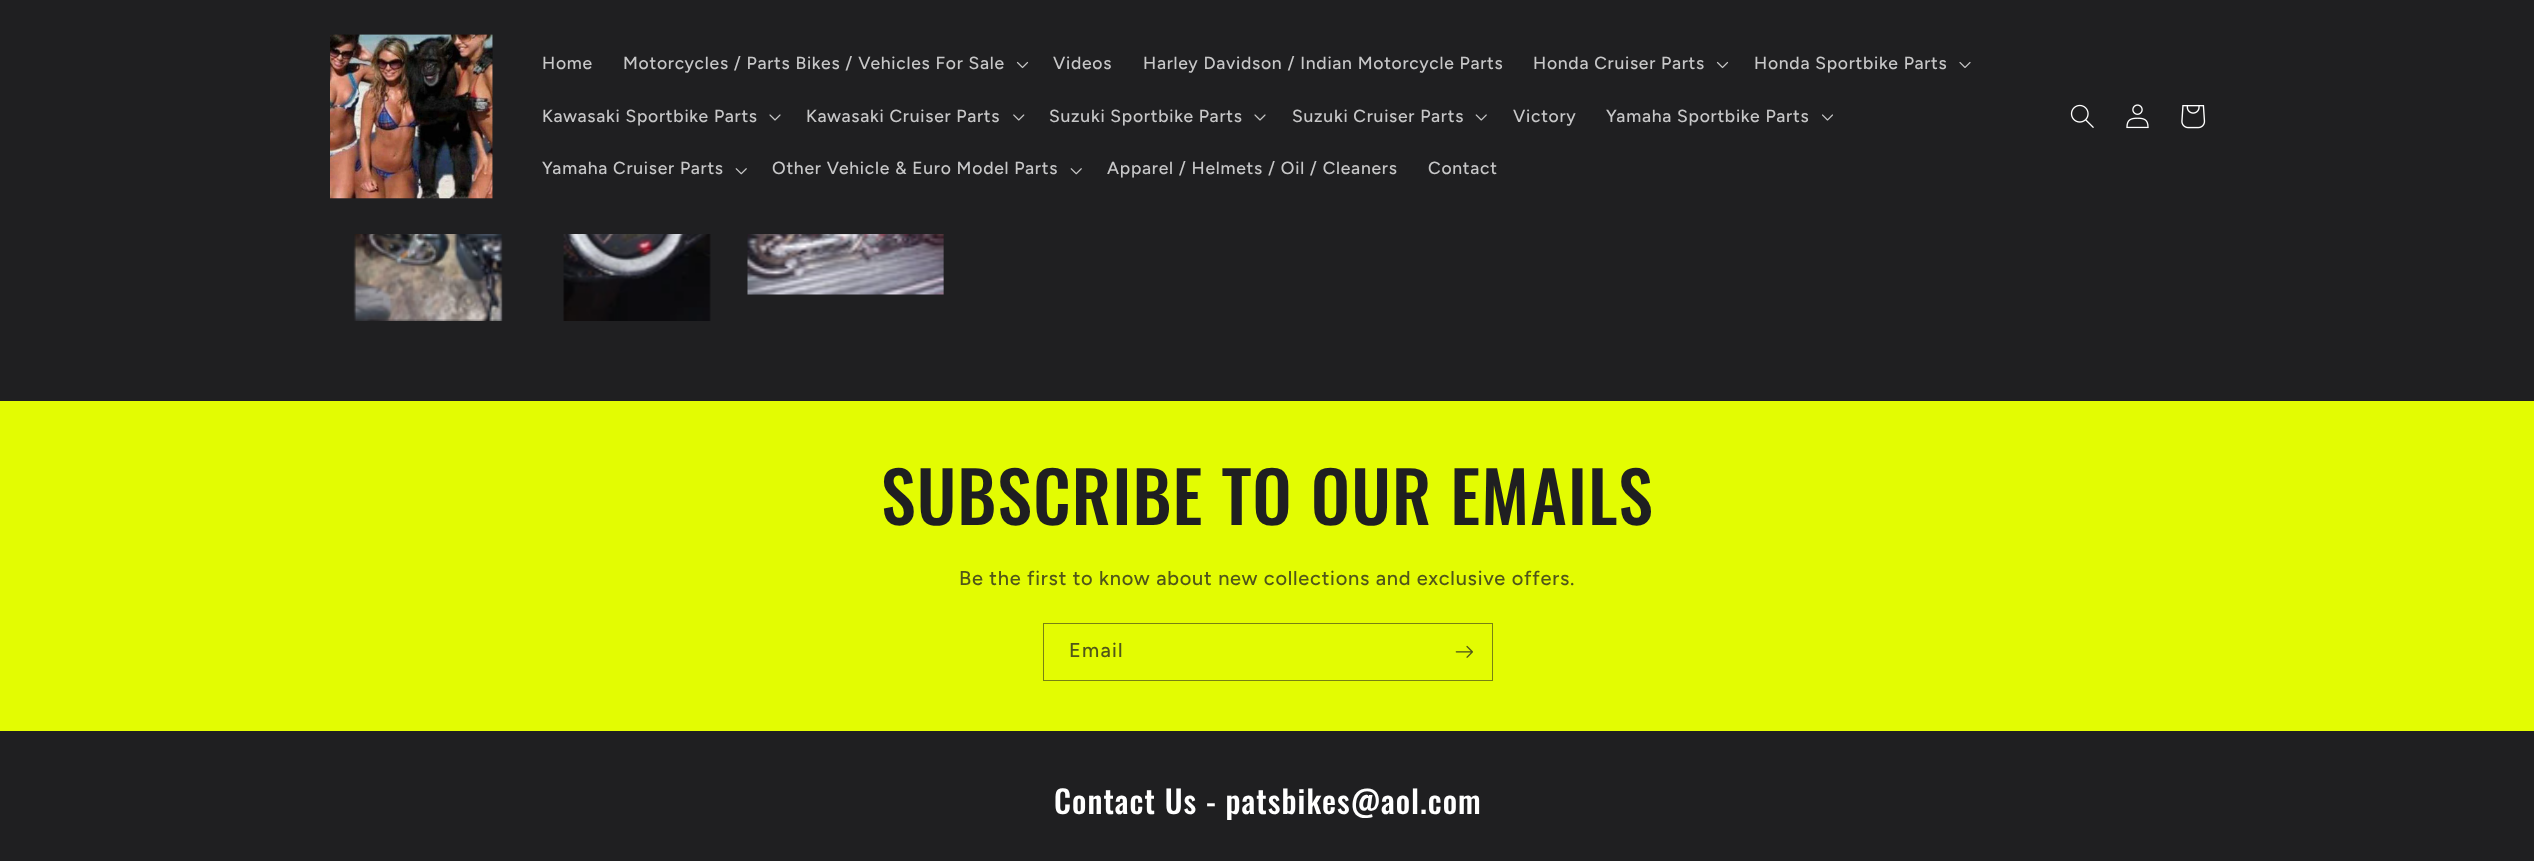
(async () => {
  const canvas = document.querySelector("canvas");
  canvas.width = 2534;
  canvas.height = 861;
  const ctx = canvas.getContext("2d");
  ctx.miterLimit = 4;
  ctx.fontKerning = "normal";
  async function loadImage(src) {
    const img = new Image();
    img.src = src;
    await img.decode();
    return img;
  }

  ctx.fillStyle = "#1f1f21";
  ctx.fillRect(0, 0, 2534, 861);
  ctx.drawImage(await loadImage("img/1.png"), 330, 34, 163, 165);
  ctx.drawImage(await loadImage("img/2.png"), 1016, 61, 13, 8);
  ctx.drawImage(await loadImage("img/2.png"), 1716, 61, 13, 8);
  ctx.drawImage(await loadImage("img/3.png"), 1959, 62, 12, 6);
  ctx.drawImage(await loadImage("img/4.png"), 769, 114, 12, 7);
  ctx.drawImage(await loadImage("img/5.png"), 1013, 114, 12, 7);
  ctx.drawImage(await loadImage("img/4.png"), 1254, 114, 12, 7);
  ctx.drawImage(await loadImage("img/6.png"), 1475, 114, 12, 7);
  ctx.drawImage(await loadImage("img/7.png"), 1822, 114, 11, 7);
  ctx.drawImage(await loadImage("img/8.png"), 735, 168, 12, 7);
  ctx.drawImage(await loadImage("img/8.png"), 1070, 168, 12, 7);
  ctx.drawImage(await loadImage("img/9.png"), 2070, 104, 24, 24);
  ctx.drawImage(await loadImage("img/10.png"), 2126, 104, 23, 25);
  ctx.drawImage(await loadImage("img/11.png"), 2181, 105, 25, 24);
  ctx.drawImage(await loadImage("img/12.png"), 353, 234, 150, 87);
  ctx.drawImage(await loadImage("img/13.png"), 563, 234, 148, 87);
  ctx.drawImage(await loadImage("img/14.png"), 747, 234, 197, 61);
  ctx.fillStyle = "#e3fc02";
  ctx.fillRect(0, 401, 2534, 330);
  ctx.strokeStyle = "#778213";
  ctx.strokeRect(1043.5, 623.5, 449, 57);
  ctx.drawImage(await loadImage("img/15.png"), 1455, 645, 18, 13);
  ctx.letterSpacing = "0.75px";
  ctx.font = "500 17.5px Figtree";
  ctx.fillStyle = "#c7c7c8";
  for (const [text, x, y] of [
    ["Home", 542, 69],
    ["Motorcycles / Parts Bikes / Vehicles For Sale", 623, 69],
    ["Videos", 1053, 69],
    ["Harley Davidson / Indian Motorcycle Parts", 1143, 69],
    ["Honda Cruiser Parts", 1533, 69],
    ["Honda Sportbike Parts", 1754, 69],
    ["Kawasaki Sportbike Parts", 542, 122],
    ["Kawasaki Cruiser Parts", 806, 122],
    ["Suzuki Sportbike Parts", 1049, 122],
    ["Suzuki Cruiser Parts", 1292, 122],
    ["Victory", 1513, 122],
    ["Yamaha Sportbike Parts", 1606, 122],
    ["Yamaha Cruiser Parts", 542, 174],
    ["Other Vehicle & Euro Model Parts", 772, 174],
    ["Apparel / Helmets / Oil / Cleaners", 1107, 174],
    ["Contact", 1428, 174],
  ]) {
    ctx.fillText(text, x, y);
  }
  ctx.letterSpacing = "1.05px";
  ctx.font = "500 70px Oswald";
  ctx.fillStyle = "#1f1f21";
  ctx.fillText("SUBSCRIBE TO OUR EMAILS", 881, 525);
  ctx.letterSpacing = "0.75px";
  ctx.font = "500 20px Figtree";
  ctx.fillStyle = "#505619";
  ctx.fillText("Be the first to know about new collections and exclusive offers.", 959, 585);
  ctx.letterSpacing = "1.25px";
  ctx.fillText("Email", 1069, 657);
  ctx.letterSpacing = "1.05px";
  ctx.font = "500 31.5px Oswald";
  ctx.fillStyle = "#ffffff";
  ctx.fillText("Contact Us - patsbikes@aol.com", 1054, 814);
})();
